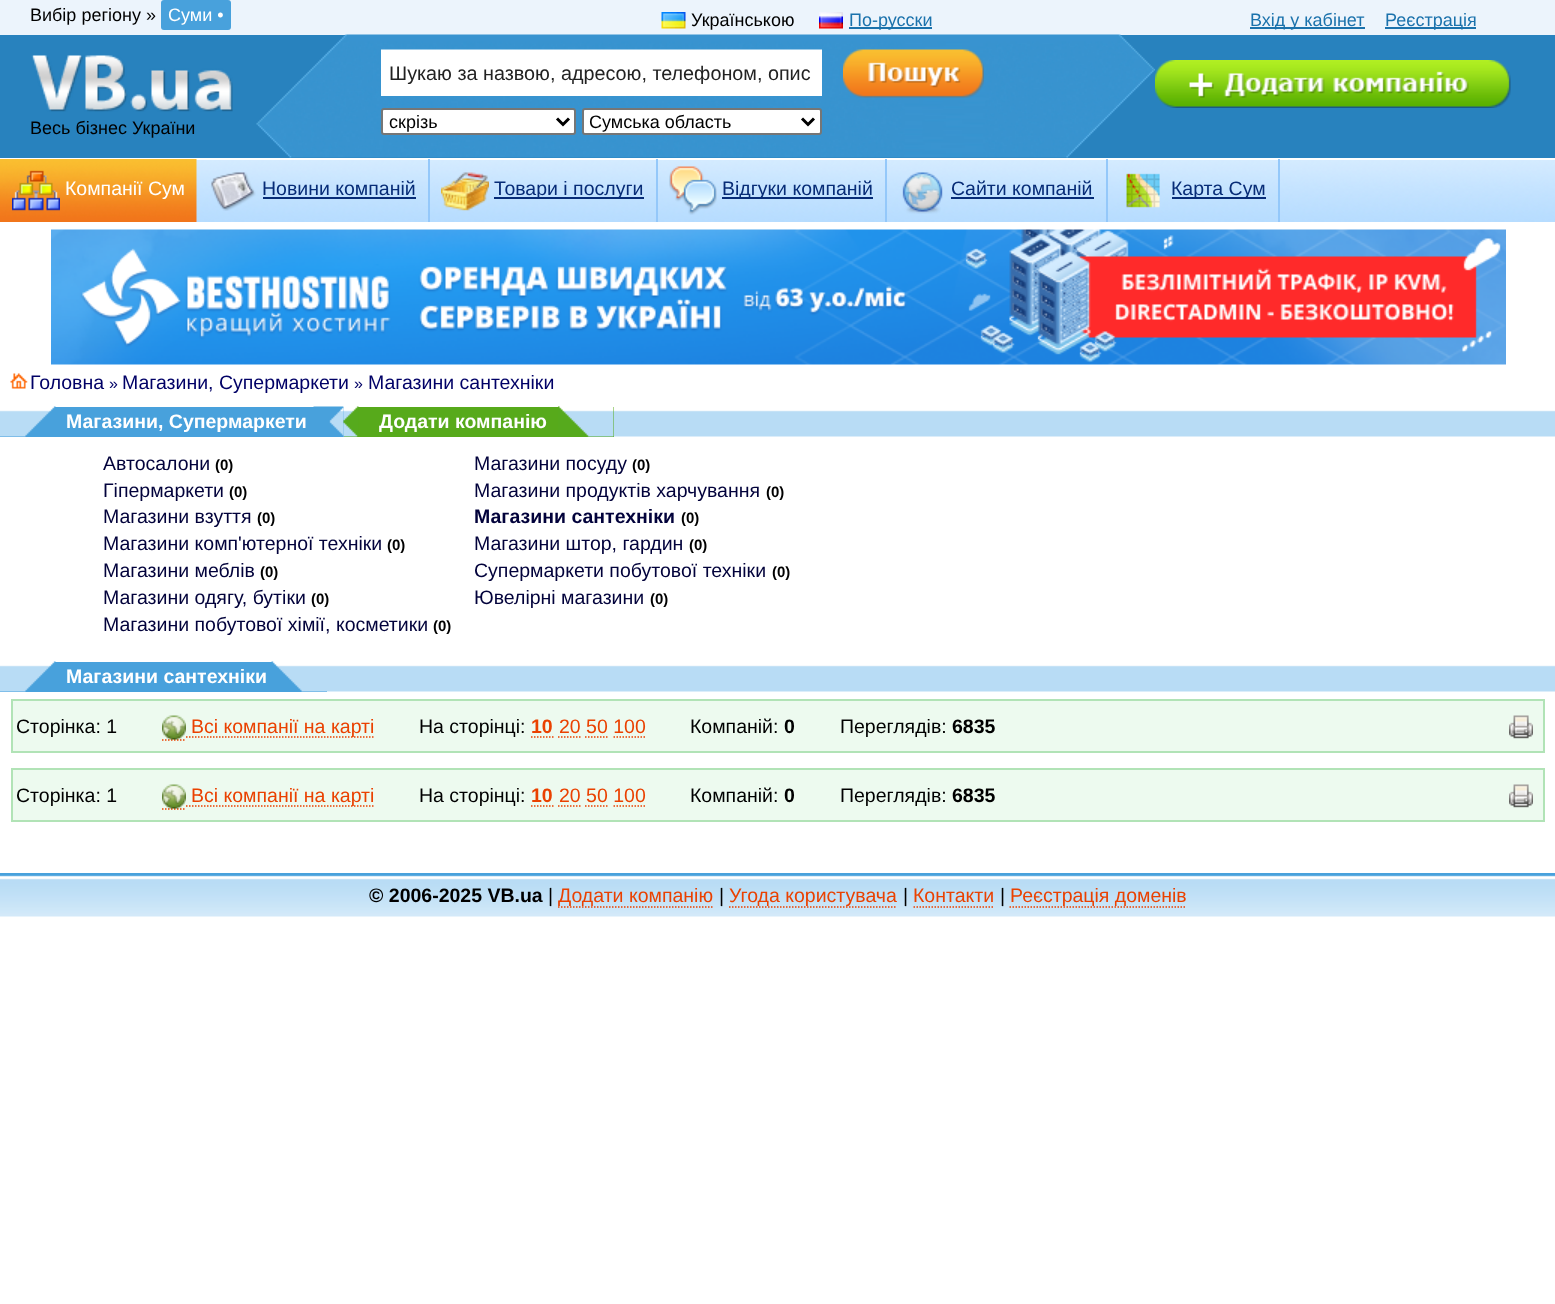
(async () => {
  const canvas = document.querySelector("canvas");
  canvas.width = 1555;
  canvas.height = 1304;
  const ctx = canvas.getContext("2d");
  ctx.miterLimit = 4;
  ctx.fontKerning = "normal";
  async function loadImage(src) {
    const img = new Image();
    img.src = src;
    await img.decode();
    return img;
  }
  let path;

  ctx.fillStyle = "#ffffff";
  ctx.fillRect(0, 0, 1555, 1304);
  ctx.fillStyle = "#ecf4fc";
  ctx.fillRect(0, 0, 1555, 35);
  ctx.fillStyle = "#48a1dc";
  ctx.beginPath();
  ctx.roundRect(161, 0, 70, 30, 3);
  ctx.fill();
  ctx.drawImage(await loadImage("img/1.png"), 661, 12, 25, 17);
  ctx.drawImage(await loadImage("img/2.png"), 819, 12, 24, 17);
  for (const [x, y, w, h, color] of [
    [849, 27, 83, 2, "#1b72ac"],
    [1250, 27, 115, 2, "#1b72ac"],
    [1385, 27, 91, 2, "#1b72ac"],
    [0, 35, 1555, 123, "#2882be"],
  ]) {
    ctx.fillStyle = color;
    ctx.fillRect(x, y, w, h);
  }
  ctx.drawImage(await loadImage("img/3.png"), 31, 55, 202, 57);
  ctx.drawImage(await loadImage("img/4.png"), 256, 34, 899, 124);
  ctx.fillStyle = "#ffffff";
  ctx.fillRect(381, 50, 441, 46);
  ctx.fillStyle = "rgba(255, 255, 255, 0.5)";
  ctx.fillRect(381, 49, 441, 1);
  ctx.drawImage(await loadImage("img/5.png"), 843, 49, 141, 49);
  ctx.fillStyle = "#ffffff";
  ctx.beginPath();
  ctx.roundRect(382, 109, 193, 25, 2);
  ctx.fill();
  ctx.strokeStyle = "#767676";
  ctx.lineWidth = 2;
  ctx.stroke();
  path = new Path2D("M557 118.5L563 124.5L569 118.5");
  ctx.strokeStyle = "#000000";
  ctx.lineWidth = 3;
  ctx.stroke(path);
  ctx.beginPath();
  ctx.roundRect(583, 109, 238, 25, 2);
  ctx.fill();
  ctx.strokeStyle = "#767676";
  ctx.lineWidth = 2;
  ctx.stroke();
  path = new Path2D("M802 118.5L808 124.5L814 118.5");
  ctx.strokeStyle = "#000000";
  ctx.lineWidth = 3;
  ctx.stroke(path);
  ctx.drawImage(await loadImage("img/6.png"), 1155, 60, 356, 48);
  ctx.drawImage(await loadImage("img/7.png"), 196, 160, 1359, 62);
  ctx.drawImage(await loadImage("img/8.png"), 0, 159, 197, 63);
  ctx.drawImage(await loadImage("img/9.png"), 12, 170, 48, 41);
  ctx.fillStyle = "#94c8fa";
  ctx.fillRect(428, 159, 2, 63);
  ctx.drawImage(await loadImage("img/10.png"), 211, 172, 45, 39);
  ctx.fillStyle = "#072c77";
  ctx.fillRect(263, 197, 153, 2);
  ctx.fillStyle = "#94c8fa";
  ctx.fillRect(656, 159, 2, 63);
  ctx.drawImage(await loadImage("img/11.png"), 441, 172, 48, 39);
  ctx.fillStyle = "#072c77";
  ctx.fillRect(494, 197, 150, 2);
  ctx.fillStyle = "#94c8fa";
  ctx.fillRect(885, 159, 2, 63);
  ctx.drawImage(await loadImage("img/12.png"), 669, 166, 48, 49);
  ctx.fillStyle = "#072c77";
  ctx.fillRect(722, 197, 151, 2);
  ctx.fillStyle = "#94c8fa";
  ctx.fillRect(1106, 159, 2, 63);
  ctx.drawImage(await loadImage("img/13.png"), 902, 172, 41, 42);
  ctx.fillStyle = "#072c77";
  ctx.fillRect(951, 197, 143, 2);
  ctx.fillStyle = "#94c8fa";
  ctx.fillRect(1278, 159, 2, 63);
  ctx.drawImage(await loadImage("img/14.png"), 1126, 173, 34, 35);
  ctx.fillStyle = "#072c77";
  ctx.fillRect(1172, 197, 94, 2);
  ctx.drawImage(await loadImage("img/15.png"), 51, 229, 1455, 136);
  ctx.drawImage(await loadImage("img/16.png"), 10, 373, 18, 16);
  ctx.drawImage(await loadImage("img/17.png"), 614, 410, 941, 27);
  ctx.fillStyle = "#48a1dc";
  ctx.fillRect(0, 407, 344, 30);
  ctx.drawImage(await loadImage("img/18.png"), 0, 406, 56, 31);
  ctx.drawImage(await loadImage("img/19.png"), 313, 406, 31, 30);
  ctx.fillStyle = "#57aa1b";
  ctx.fillRect(344, 407, 270, 30);
  ctx.drawImage(await loadImage("img/20.png"), 343, 406, 16, 31);
  ctx.drawImage(await loadImage("img/21.png"), 558, 406, 56, 31);
  ctx.drawImage(await loadImage("img/22.png"), 327, 665, 1228, 27);
  ctx.fillStyle = "#48a1dc";
  ctx.fillRect(0, 662, 327, 30);
  ctx.drawImage(await loadImage("img/18.png"), 0, 661, 56, 31);
  ctx.drawImage(await loadImage("img/23.png"), 271, 661, 56, 31);
  ctx.fillStyle = "#edfaef";
  ctx.beginPath();
  ctx.rect(12, 700, 1532, 52);
  ctx.fill();
  ctx.strokeStyle = "#b1e3b6";
  ctx.lineWidth = 2;
  ctx.stroke();
  path = new Path2D("M162 740H186");
  ctx.strokeStyle = "#ea4100";
  ctx.lineWidth = 1.5;
  ctx.setLineDash([1.5, 1.5]);
  ctx.stroke(path);
  ctx.drawImage(await loadImage("img/24.png"), 162, 715, 24, 25);
  path = new Path2D("M186 737H375");
  ctx.stroke(path);
  path = new Path2D("M531 737H553.5");
  ctx.stroke(path);
  path = new Path2D("M558 737H580.5");
  ctx.stroke(path);
  path = new Path2D("M585 737H607.5M613.5 737H645");
  ctx.stroke(path);
  ctx.drawImage(await loadImage("img/25.png"), 1509, 715, 24, 24);
  ctx.beginPath();
  ctx.rect(12, 769, 1532, 52);
  ctx.fill();
  ctx.strokeStyle = "#b1e3b6";
  ctx.lineWidth = 2;
  ctx.setLineDash([]);
  ctx.stroke();
  path = new Path2D("M162 809H186");
  ctx.strokeStyle = "#ea4100";
  ctx.lineWidth = 1.5;
  ctx.setLineDash([1.5, 1.5]);
  ctx.stroke(path);
  ctx.drawImage(await loadImage("img/24.png"), 162, 784, 24, 25);
  path = new Path2D("M186 806H375");
  ctx.stroke(path);
  path = new Path2D("M531 806H553.5");
  ctx.stroke(path);
  path = new Path2D("M558 806H580.5");
  ctx.stroke(path);
  path = new Path2D("M585 806H607.5M613.5 806H645");
  ctx.stroke(path);
  ctx.drawImage(await loadImage("img/25.png"), 1509, 784, 24, 24);
  ctx.drawImage(await loadImage("img/26.png"), 0, 873, 1555, 44);
  path = new Path2D("M558 907H714");
  ctx.stroke(path);
  path = new Path2D("M729 907H897");
  ctx.stroke(path);
  path = new Path2D("M913.5 907H994.5");
  ctx.stroke(path);
  path = new Path2D("M1009.5 907H1186.5");
  ctx.stroke(path);
  ctx.font = "18px Liberation Sans";
  ctx.fillStyle = "#000000";
  ctx.fillText("Вибір регіону »", 30, 21);
  ctx.fillStyle = "#ffffff";
  ctx.fillText("Суми •", 168, 21);
  ctx.fillStyle = "#000000";
  ctx.fillText("Українською", 691, 26);
  ctx.fillStyle = "#1b72ac";
  for (const [text, x, y] of [
    ["По-русски", 849, 26],
    ["Вхід у кабінет", 1250, 26],
    ["Реєстрація", 1385, 26],
  ]) {
    ctx.fillText(text, x, y);
  }
  ctx.fillStyle = "#000000";
  ctx.fillText("Весь бізнес України", 30, 134);
  ctx.save();
  ctx.beginPath();
  ctx.rect(389, 62, 426, 22);
  ctx.clip();
  ctx.font = "19.8px Liberation Sans";
  ctx.fillStyle = "#222222";
  ctx.fillText("Шукаю за назвою, адресою, телефоном, опис", 389, 80);
  ctx.restore();
  ctx.fillText("скрізь", 389, 128);
  ctx.fillText("Сумська область", 589, 128);
  ctx.font = "19.5px Liberation Sans";
  ctx.fillStyle = "#ffffff";
  ctx.fillText("Компанії Сум", 65, 195);
  ctx.fillStyle = "#072c77";
  for (const [text, x, y] of [
    ["Новини компаній", 262, 195],
    ["Товари і послуги", 494, 195],
    ["Відгуки компаній", 722, 195],
    ["Cайти компаній", 951, 195],
    ["Карта Сум", 1171, 195],
  ]) {
    ctx.fillText(text, x, y);
  }
  ctx.fillStyle = "#000066";
  ctx.fillText("Головна", 30, 389);
  ctx.font = "16px Liberation Sans";
  ctx.fillText("»", 109, 389);
  ctx.font = "19.5px Liberation Sans";
  ctx.fillText("Магазини, Супермаркети", 122, 389);
  ctx.font = "16px Liberation Sans";
  ctx.fillText("»", 354, 389);
  ctx.font = "19.5px Liberation Sans";
  ctx.fillText("Магазини сантехніки", 368, 389);
  ctx.font = "bold 19.5px Liberation Sans";
  ctx.fillStyle = "#ffffff";
  ctx.fillText("Магазини, Супермаркети", 66, 428);
  ctx.fillText("Додати компанію", 379, 428);
  ctx.font = "19.5px Liberation Sans";
  ctx.fillStyle = "#02023b";
  ctx.fillText("Автосалони", 103, 470);
  ctx.font = "bold 15px Liberation Sans";
  ctx.fillStyle = "#000000";
  ctx.fillText("(0)", 215, 470);
  ctx.font = "19.5px Liberation Sans";
  ctx.fillStyle = "#02023b";
  ctx.fillText("Гіпермаркети", 103, 497);
  ctx.font = "bold 15px Liberation Sans";
  ctx.fillStyle = "#000000";
  ctx.fillText("(0)", 229, 497);
  ctx.font = "19.5px Liberation Sans";
  ctx.fillStyle = "#02023b";
  ctx.fillText("Магазини взуття", 103, 523);
  ctx.font = "bold 15px Liberation Sans";
  ctx.fillStyle = "#000000";
  ctx.fillText("(0)", 257, 523);
  ctx.font = "19.5px Liberation Sans";
  ctx.fillStyle = "#02023b";
  ctx.fillText("Магазини комп'ютерної техніки", 103, 550);
  ctx.font = "bold 15px Liberation Sans";
  ctx.fillStyle = "#000000";
  ctx.fillText("(0)", 387, 550);
  ctx.font = "19.5px Liberation Sans";
  ctx.fillStyle = "#02023b";
  ctx.fillText("Магазини меблів", 103, 577);
  ctx.font = "bold 15px Liberation Sans";
  ctx.fillStyle = "#000000";
  ctx.fillText("(0)", 260, 577);
  ctx.font = "19.5px Liberation Sans";
  ctx.fillStyle = "#02023b";
  ctx.fillText("Магазини одягу, бутіки", 103, 604);
  ctx.font = "bold 15px Liberation Sans";
  ctx.fillStyle = "#000000";
  ctx.fillText("(0)", 311, 604);
  ctx.font = "19.5px Liberation Sans";
  ctx.fillStyle = "#02023b";
  ctx.fillText("Магазини побутової хімії, косметики", 103, 631);
  ctx.font = "bold 15px Liberation Sans";
  ctx.fillStyle = "#000000";
  ctx.fillText("(0)", 433, 631);
  ctx.font = "19.5px Liberation Sans";
  ctx.fillStyle = "#02023b";
  ctx.fillText("Магазини посуду", 474, 470);
  ctx.font = "bold 15px Liberation Sans";
  ctx.fillStyle = "#000000";
  ctx.fillText("(0)", 632, 470);
  ctx.font = "19.5px Liberation Sans";
  ctx.fillStyle = "#02023b";
  ctx.fillText("Магазини продуктів харчування", 474, 497);
  ctx.font = "bold 15px Liberation Sans";
  ctx.fillStyle = "#000000";
  ctx.fillText("(0)", 766, 497);
  ctx.font = "bold 19.5px Liberation Sans";
  ctx.fillStyle = "#02023b";
  ctx.fillText("Магазини сантехніки", 474, 523);
  ctx.font = "bold 15px Liberation Sans";
  ctx.fillStyle = "#000000";
  ctx.fillText("(0)", 681, 523);
  ctx.font = "19.5px Liberation Sans";
  ctx.fillStyle = "#02023b";
  ctx.fillText("Магазини штор, гардин", 474, 550);
  ctx.font = "bold 15px Liberation Sans";
  ctx.fillStyle = "#000000";
  ctx.fillText("(0)", 689, 550);
  ctx.font = "19.5px Liberation Sans";
  ctx.fillStyle = "#02023b";
  ctx.fillText("Супермаркети побутової техніки", 474, 577);
  ctx.font = "bold 15px Liberation Sans";
  ctx.fillStyle = "#000000";
  ctx.fillText("(0)", 772, 577);
  ctx.font = "19.5px Liberation Sans";
  ctx.fillStyle = "#02023b";
  ctx.fillText("Ювелірні магазини", 474, 604);
  ctx.font = "bold 15px Liberation Sans";
  ctx.fillStyle = "#000000";
  ctx.fillText("(0)", 650, 604);
  ctx.font = "bold 19.5px Liberation Sans";
  ctx.fillStyle = "#ffffff";
  ctx.fillText("Магазини сантехніки", 66, 683);
  ctx.font = "19.5px Liberation Sans";
  ctx.fillStyle = "#000000";
  ctx.fillText("Сторінка: 1", 16, 733);
  ctx.fillStyle = "#ea4100";
  ctx.fillText("Всі компанії на карті", 191, 733);
  ctx.fillStyle = "#000000";
  ctx.fillText("На сторінці:", 419, 733);
  ctx.font = "bold 19.5px Liberation Sans";
  ctx.fillStyle = "#ea4100";
  ctx.fillText("10", 531, 733);
  ctx.font = "19.5px Liberation Sans";
  ctx.fillText("20 50 100", 559, 733);
  ctx.fillStyle = "#000000";
  ctx.fillText("Компаній:", 690, 733);
  ctx.font = "bold 19.5px Liberation Sans";
  ctx.fillText("0", 784, 733);
  ctx.font = "19.5px Liberation Sans";
  ctx.fillText("Переглядів:", 840, 733);
  ctx.font = "bold 19.5px Liberation Sans";
  ctx.fillText("6835", 952, 733);
  ctx.font = "19.5px Liberation Sans";
  ctx.fillText("Сторінка: 1", 16, 802);
  ctx.fillStyle = "#ea4100";
  ctx.fillText("Всі компанії на карті", 191, 802);
  ctx.fillStyle = "#000000";
  ctx.fillText("На сторінці:", 419, 802);
  ctx.font = "bold 19.5px Liberation Sans";
  ctx.fillStyle = "#ea4100";
  ctx.fillText("10", 531, 802);
  ctx.font = "19.5px Liberation Sans";
  ctx.fillText("20 50 100", 559, 802);
  ctx.fillStyle = "#000000";
  ctx.fillText("Компаній:", 690, 802);
  ctx.font = "bold 19.5px Liberation Sans";
  ctx.fillText("0", 784, 802);
  ctx.font = "19.5px Liberation Sans";
  ctx.fillText("Переглядів:", 840, 802);
  ctx.font = "bold 19.5px Liberation Sans";
  ctx.fillText("6835", 952, 802);
  ctx.fillText("© 2006-2025 VB.ua", 369, 902);
  ctx.font = "19.5px Liberation Sans";
  ctx.fillText("|", 548, 902);
  ctx.fillStyle = "#ea4100";
  ctx.fillText("Додати компанію", 558, 902);
  ctx.fillStyle = "#000000";
  ctx.fillText("|", 719, 902);
  ctx.fillStyle = "#ea4100";
  ctx.fillText("Угода користувача", 729, 902);
  ctx.fillStyle = "#000000";
  ctx.fillText("|", 903, 902);
  ctx.fillStyle = "#ea4100";
  ctx.fillText("Контакти", 913, 902);
  ctx.fillStyle = "#000000";
  ctx.fillText("|", 1000, 902);
  ctx.fillStyle = "#ea4100";
  ctx.fillText("Реєстрація доменів", 1010, 902);
})();
